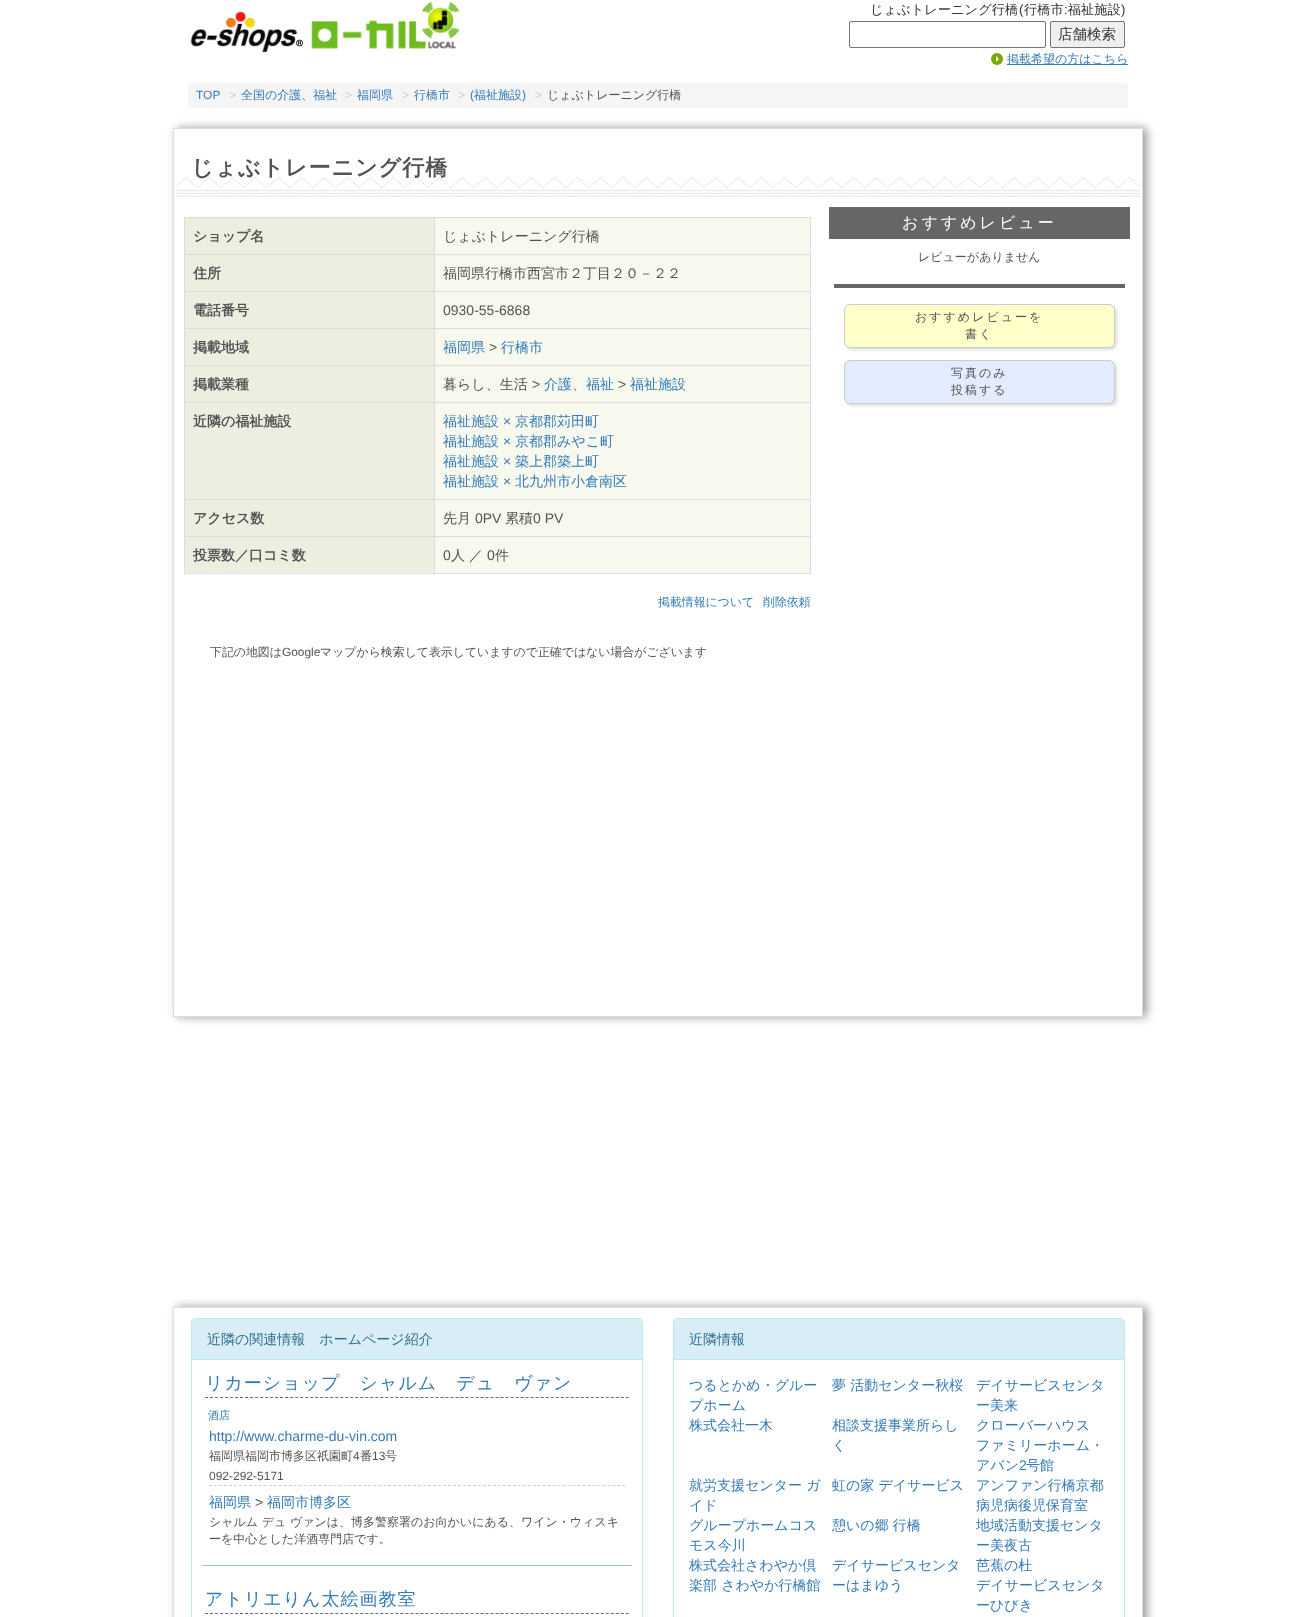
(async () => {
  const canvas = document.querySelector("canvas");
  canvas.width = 1316;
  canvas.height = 1617;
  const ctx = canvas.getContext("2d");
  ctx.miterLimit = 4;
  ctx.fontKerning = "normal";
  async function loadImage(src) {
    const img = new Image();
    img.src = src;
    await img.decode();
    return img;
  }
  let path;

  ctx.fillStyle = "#ffffff";
  ctx.fillRect(0, 0, 1316, 1617);
  ctx.drawImage(await loadImage("img/1.png"), 190, 2, 270, 50);
  ctx.beginPath();
  ctx.roundRect(849.5, 21.5, 196, 26, 1.5);
  ctx.strokeStyle = "#767676";
  ctx.stroke();
  ctx.fillStyle = "#efefef";
  ctx.beginPath();
  ctx.roundRect(1050.5, 21.5, 74, 26, 1.5);
  ctx.fill();
  ctx.stroke();
  ctx.fillStyle = "#77aa00";
  ctx.beginPath();
  ctx.arc(997, 59, 6, 0, Math.PI * 2);
  ctx.fill();
  ctx.fillStyle = "#337ab7";
  ctx.fillRect(1007, 64, 121, 1);
  ctx.fillStyle = "#ffffff";
  path = new Path2D("M996 62V56L999 59Z");
  ctx.fill(path);
  ctx.fillStyle = "#f5f5f5";
  ctx.beginPath();
  ctx.roundRect(188, 83, 940, 25, 4);
  ctx.fill();
  ctx.save();
  path = new Path2D("M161 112H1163V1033H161ZM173 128H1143V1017H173Z");
  ctx.clip(path, "evenodd");
  ctx.fillStyle = "rgba(0, 0, 0, 0.4)";
  ctx.filter = "blur(5px)";
  ctx.beginPath();
  ctx.rect(177, 128, 970, 889);
  ctx.fill();
  ctx.filter = "none";
  ctx.restore();
  ctx.strokeStyle = "#dedede";
  ctx.strokeRect(173.5, 128.5, 969, 888);
  ctx.drawImage(await loadImage("img/2.png"), 176, 177, 964, 20);
  for (const [x, y, w, h, color] of [
    [184, 217, 627, 1, "#dddddd"],
    [810, 217, 1, 357, "#dddddd"],
    [184, 573, 627, 1, "#dddddd"],
    [184, 217, 1, 357, "#dddddd"],
    [185, 218, 249, 36, "#ebefdf"],
    [435, 218, 375, 36, "#f7f9ef"],
    [434, 254, 377, 1, "#dddddd"],
    [434, 291, 377, 1, "#dddddd"],
    [434, 328, 377, 1, "#dddddd"],
    [434, 365, 377, 1, "#dddddd"],
    [434, 402, 377, 1, "#dddddd"],
    [434, 499, 377, 1, "#dddddd"],
    [434, 536, 377, 1, "#dddddd"],
    [434, 536, 1, 38, "#dddddd"],
    [184, 536, 251, 1, "#dddddd"],
    [434, 499, 1, 38, "#dddddd"],
    [184, 499, 251, 1, "#dddddd"],
    [434, 402, 1, 98, "#dddddd"],
    [184, 402, 251, 1, "#dddddd"],
    [434, 365, 1, 38, "#dddddd"],
    [184, 365, 251, 1, "#dddddd"],
    [434, 328, 1, 38, "#dddddd"],
    [184, 328, 251, 1, "#dddddd"],
    [434, 291, 1, 38, "#dddddd"],
    [184, 291, 251, 1, "#dddddd"],
    [434, 254, 1, 38, "#dddddd"],
    [184, 254, 251, 1, "#dddddd"],
    [434, 217, 1, 38, "#dddddd"],
    [185, 255, 249, 36, "#ebefdf"],
    [435, 255, 375, 36, "#f7f9ef"],
    [185, 292, 249, 36, "#ebefdf"],
    [435, 292, 375, 36, "#f7f9ef"],
    [185, 329, 249, 36, "#ebefdf"],
    [435, 329, 375, 36, "#f7f9ef"],
    [185, 366, 249, 36, "#ebefdf"],
    [435, 366, 375, 36, "#f7f9ef"],
    [185, 403, 249, 96, "#ebefdf"],
    [435, 403, 375, 96, "#f7f9ef"],
    [185, 500, 249, 36, "#ebefdf"],
    [435, 500, 375, 36, "#f7f9ef"],
    [185, 537, 249, 36, "#ebefdf"],
    [435, 537, 375, 36, "#f7f9ef"],
    [829, 207, 301, 32, "#666666"],
    [834, 284, 291, 4, "#666666"],
  ]) {
    ctx.fillStyle = color;
    ctx.fillRect(x, y, w, h);
  }
  ctx.fillStyle = "#dddddd";
  ctx.filter = "blur(1.5px)";
  ctx.beginPath();
  ctx.roundRect(846, 306, 271, 44, 6);
  ctx.fill();
  ctx.filter = "none";
  ctx.fillStyle = "#ffffca";
  ctx.beginPath();
  ctx.roundRect(844.5, 304.5, 270, 43, 5.5);
  ctx.fill();
  ctx.strokeStyle = "#cccccc";
  ctx.stroke();
  ctx.fillStyle = "#dddddd";
  ctx.filter = "blur(1.5px)";
  ctx.beginPath();
  ctx.roundRect(846, 362, 271, 44, 6);
  ctx.fill();
  ctx.filter = "none";
  ctx.fillStyle = "#e3ebff";
  ctx.beginPath();
  ctx.roundRect(844.5, 360.5, 270, 43, 5.5);
  ctx.fill();
  ctx.stroke();
  ctx.save();
  path = new Path2D("M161 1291H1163V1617H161ZM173 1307H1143V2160H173Z");
  ctx.clip(path, "evenodd");
  ctx.fillStyle = "rgba(0, 0, 0, 0.4)";
  ctx.filter = "blur(5px)";
  ctx.beginPath();
  ctx.rect(177, 1307, 970, 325);
  ctx.fill();
  ctx.filter = "none";
  ctx.restore();
  ctx.strokeStyle = "#dedede";
  ctx.strokeRect(173.5, 1307.5, 969, 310);
  ctx.beginPath();
  ctx.roundRect(191.5, 1318.5, 451, 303, 3.5);
  ctx.strokeStyle = "#bce8f1";
  ctx.stroke();
  ctx.fillStyle = "#d9edf7";
  ctx.beginPath();
  ctx.roundRect(192, 1319, 450, 41, [3, 3, 0, 0]);
  ctx.fill();
  ctx.fillStyle = "#bce8f1";
  ctx.fillRect(192, 1359, 450, 1);
  ctx.fillStyle = "#9fc2c9";
  ctx.fillRect(202, 1565, 430, 1);
  path = new Path2D("M205 1397.5H629");
  ctx.strokeStyle = "#5c6b99";
  ctx.setLineDash([3, 2.01]);
  ctx.stroke(path);
  path = new Path2D("M209 1485.5H625");
  ctx.strokeStyle = "#cccccc";
  ctx.setLineDash([3, 1.98]);
  ctx.stroke(path);
  path = new Path2D("M205 1613.5H629");
  ctx.strokeStyle = "#5c6b99";
  ctx.setLineDash([3, 2.01]);
  ctx.stroke(path);
  ctx.beginPath();
  ctx.roundRect(673.5, 1318.5, 451, 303, 3.5);
  ctx.strokeStyle = "#bce8f1";
  ctx.setLineDash([]);
  ctx.stroke();
  ctx.fillStyle = "#d9edf7";
  ctx.beginPath();
  ctx.roundRect(674, 1319, 450, 41, [3, 3, 0, 0]);
  ctx.fill();
  ctx.fillStyle = "#bce8f1";
  ctx.fillRect(674, 1359, 450, 1);
  ctx.font = "500 13.25px WenQuanYi Zen Hei";
  ctx.fillStyle = "#333333";
  ctx.fillText("じょぶトレーニング行橋", 870, 14);
  ctx.font = "13.25px Liberation Sans";
  ctx.fillText("(", 1019, 14);
  ctx.font = "500 13.25px WenQuanYi Zen Hei";
  ctx.fillText("行橋市 福祉施設", 1024, 14);
  ctx.font = "13.25px Liberation Sans";
  ctx.fillText(")", 1121, 14);
  ctx.fillText(":", 1064, 14);
  ctx.font = "500 14.5px WenQuanYi Zen Hei";
  ctx.fillText("店舗検索", 1058, 39);
  ctx.font = "500 12px WenQuanYi Zen Hei";
  ctx.fillStyle = "#337ab7";
  ctx.fillText("掲載希望の方はこちら", 1007, 63);
  ctx.font = "12px Liberation Sans";
  ctx.fillText("TOP", 196, 99);
  ctx.fillStyle = "#cccccc";
  ctx.fillText(">", 229, 99);
  ctx.font = "500 12px WenQuanYi Zen Hei";
  ctx.fillStyle = "#337ab7";
  ctx.fillText("全国の介護、福祉", 241, 99);
  ctx.font = "12px Liberation Sans";
  ctx.fillStyle = "#cccccc";
  ctx.fillText(">", 345, 99);
  ctx.font = "500 12px WenQuanYi Zen Hei";
  ctx.fillStyle = "#337ab7";
  ctx.fillText("福岡県", 357, 99);
  ctx.font = "12px Liberation Sans";
  ctx.fillStyle = "#cccccc";
  ctx.fillText(">", 402, 99);
  ctx.font = "500 12px WenQuanYi Zen Hei";
  ctx.fillStyle = "#337ab7";
  ctx.fillText("行橋市", 414, 99);
  ctx.font = "12px Liberation Sans";
  ctx.fillStyle = "#cccccc";
  ctx.fillText(">", 458, 99);
  ctx.fillStyle = "#337ab7";
  ctx.fillText("(", 470, 99);
  ctx.font = "500 12px WenQuanYi Zen Hei";
  ctx.fillText("福祉施設", 474, 99);
  ctx.font = "12px Liberation Sans";
  ctx.fillText(")", 522, 99);
  ctx.fillStyle = "#cccccc";
  ctx.fillText(">", 535, 99);
  ctx.font = "500 12px WenQuanYi Zen Hei";
  ctx.fillStyle = "#535353";
  ctx.fillText("じょぶトレーニング行橋", 547, 99);
  ctx.letterSpacing = "1px";
  ctx.font = "bold 22px WenQuanYi Zen Hei";
  ctx.fillText("じょぶトレーニング行橋", 191, 175);
  ctx.letterSpacing = "0px";
  ctx.font = "bold 14px WenQuanYi Zen Hei";
  ctx.fillText("ショップ名", 193, 241);
  ctx.font = "500 14px WenQuanYi Zen Hei";
  ctx.fillText("じょぶトレーニング行橋", 443, 241);
  ctx.font = "bold 14px WenQuanYi Zen Hei";
  ctx.fillText("住所", 193, 278);
  ctx.font = "500 14px WenQuanYi Zen Hei";
  ctx.fillText("福岡県行橋市西宮市２丁目２０－２２", 443, 278);
  ctx.font = "bold 14px WenQuanYi Zen Hei";
  ctx.fillText("電話番号", 193, 315);
  ctx.font = "14px Liberation Sans";
  ctx.fillText("0930-55-6868", 443, 315);
  ctx.font = "bold 14px WenQuanYi Zen Hei";
  ctx.fillText("掲載地域", 193, 352);
  ctx.font = "500 14px WenQuanYi Zen Hei";
  ctx.fillStyle = "#337ab7";
  ctx.fillText("福岡県", 443, 352);
  ctx.font = "14px Liberation Sans";
  ctx.fillStyle = "#535353";
  ctx.fillText(">", 489, 352);
  ctx.font = "500 14px WenQuanYi Zen Hei";
  ctx.fillStyle = "#337ab7";
  ctx.fillText("行橋市", 501, 352);
  ctx.font = "bold 14px WenQuanYi Zen Hei";
  ctx.fillStyle = "#535353";
  ctx.fillText("掲載業種", 193, 389);
  ctx.font = "500 14px WenQuanYi Zen Hei";
  ctx.fillText("暮らし、生活", 443, 389);
  ctx.font = "14px Liberation Sans";
  ctx.fillText(">", 532, 389);
  ctx.font = "500 14px WenQuanYi Zen Hei";
  ctx.fillStyle = "#337ab7";
  ctx.fillText("介護、福祉", 544, 389);
  ctx.font = "14px Liberation Sans";
  ctx.fillStyle = "#535353";
  ctx.fillText(">", 618, 389);
  ctx.font = "500 14px WenQuanYi Zen Hei";
  ctx.fillStyle = "#337ab7";
  ctx.fillText("福祉施設", 630, 389);
  ctx.font = "bold 14px WenQuanYi Zen Hei";
  ctx.fillStyle = "#535353";
  ctx.fillText("近隣の福祉施設", 193, 426);
  ctx.font = "500 14px WenQuanYi Zen Hei";
  ctx.fillStyle = "#337ab7";
  ctx.fillText("福祉施設", 443, 426);
  ctx.font = "14px Liberation Sans";
  ctx.fillText("×", 503, 426);
  ctx.font = "500 14px WenQuanYi Zen Hei";
  ctx.fillText("京都郡苅田町", 515, 426);
  ctx.fillText("福祉施設", 443, 446);
  ctx.font = "14px Liberation Sans";
  ctx.fillText("×", 503, 446);
  ctx.font = "500 14px WenQuanYi Zen Hei";
  ctx.fillText("京都郡みやこ町", 515, 446);
  ctx.fillText("福祉施設", 443, 466);
  ctx.font = "14px Liberation Sans";
  ctx.fillText("×", 503, 466);
  ctx.font = "500 14px WenQuanYi Zen Hei";
  ctx.fillText("築上郡築上町", 515, 466);
  ctx.fillText("福祉施設", 443, 486);
  ctx.font = "14px Liberation Sans";
  ctx.fillText("×", 503, 486);
  ctx.font = "500 14px WenQuanYi Zen Hei";
  ctx.fillText("北九州市小倉南区", 515, 486);
  ctx.font = "bold 14px WenQuanYi Zen Hei";
  ctx.fillStyle = "#535353";
  ctx.fillText("アクセス数", 193, 523);
  ctx.font = "500 14px WenQuanYi Zen Hei";
  ctx.fillText("先月", 443, 523);
  ctx.font = "14px Liberation Sans";
  ctx.fillText("0PV", 475, 523);
  ctx.font = "500 14px WenQuanYi Zen Hei";
  ctx.fillText("累積", 505, 523);
  ctx.font = "14px Liberation Sans";
  ctx.fillText("0 PV", 533, 523);
  ctx.font = "bold 14px WenQuanYi Zen Hei";
  ctx.fillText("投票数／口コミ数", 193, 560);
  ctx.font = "14px Liberation Sans";
  ctx.fillText("0", 443, 560);
  ctx.font = "500 14px WenQuanYi Zen Hei";
  ctx.fillText("人", 451, 560);
  ctx.fillText("／", 469, 560);
  ctx.font = "14px Liberation Sans";
  ctx.fillText("0", 487, 560);
  ctx.font = "500 14px WenQuanYi Zen Hei";
  ctx.fillText("件", 495, 560);
  ctx.font = "500 11.9px WenQuanYi Zen Hei";
  ctx.fillStyle = "#337ab7";
  ctx.fillText("掲載情報について", 658, 606);
  ctx.fillText("削除依頼", 763, 606);
  ctx.fillStyle = "#535353";
  ctx.fillText("下記の地図は", 210, 656);
  ctx.font = "11.9px Liberation Sans";
  ctx.fillText("Google", 282, 656);
  ctx.font = "500 11.9px WenQuanYi Zen Hei";
  ctx.fillText("マップから検索して表示していますので正確ではない場合がございます", 320, 656);
  ctx.letterSpacing = "3px";
  ctx.font = "500 16px WenQuanYi Zen Hei";
  ctx.fillStyle = "#ffffff";
  ctx.fillText("おすすめレビュー", 902, 228);
  ctx.letterSpacing = "0px";
  ctx.font = "500 12px WenQuanYi Zen Hei";
  ctx.fillStyle = "#535353";
  ctx.fillText("レビューがありません", 918, 261);
  ctx.letterSpacing = "2px";
  for (const [text, x, y] of [
    ["おすすめレビューを", 915, 321],
    ["書く", 965, 338],
    ["写真のみ", 951, 377],
    ["投稿する", 951, 394],
  ]) {
    ctx.fillText(text, x, y);
  }
  ctx.letterSpacing = "0px";
  ctx.font = "500 14px WenQuanYi Zen Hei";
  ctx.fillStyle = "#31708f";
  ctx.fillText("近隣の関連情報　ホームページ紹介", 207, 1344);
  ctx.letterSpacing = "1px";
  ctx.font = "500 18px WenQuanYi Zen Hei";
  ctx.fillStyle = "#337ab7";
  ctx.fillText("リカーショップ　シャルム　デュ　ヴァン", 205, 1389);
  ctx.letterSpacing = "0px";
  ctx.font = "500 11px WenQuanYi Zen Hei";
  ctx.fillText("酒店", 208, 1419);
  ctx.font = "14px Liberation Sans";
  ctx.fillText("http://www.charme-du-vin.com", 209, 1441);
  ctx.font = "500 12px WenQuanYi Zen Hei";
  ctx.fillStyle = "#535353";
  ctx.fillText("福岡県福岡市博多区祇園町", 209, 1460);
  ctx.font = "12px Liberation Sans";
  ctx.fillText("4", 353, 1460);
  ctx.font = "500 12px WenQuanYi Zen Hei";
  ctx.fillText("番", 360, 1460);
  ctx.font = "12px Liberation Sans";
  ctx.fillText("13", 372, 1460);
  ctx.font = "500 12px WenQuanYi Zen Hei";
  ctx.fillText("号", 385, 1460);
  ctx.font = "12px Liberation Sans";
  ctx.fillText("092-292-5171", 209, 1480);
  ctx.font = "500 14px WenQuanYi Zen Hei";
  ctx.fillStyle = "#337ab7";
  ctx.fillText("福岡県", 209, 1507);
  ctx.font = "14px Liberation Sans";
  ctx.fillStyle = "#535353";
  ctx.fillText(">", 255, 1507);
  ctx.font = "500 14px WenQuanYi Zen Hei";
  ctx.fillStyle = "#337ab7";
  ctx.fillText("福岡市博多区", 267, 1507);
  ctx.font = "500 12px WenQuanYi Zen Hei";
  ctx.fillStyle = "#535353";
  ctx.fillText("シャルム デュ ヴァンは、博多警察署のお向かいにある、ワイン・ウィスキ", 209, 1526);
  ctx.fillText("ーを中心とした洋酒専門店です。", 209, 1543);
  ctx.letterSpacing = "1px";
  ctx.font = "500 18px WenQuanYi Zen Hei";
  ctx.fillStyle = "#337ab7";
  ctx.fillText("アトリエりん太絵画教室", 205, 1605);
  ctx.letterSpacing = "0px";
  ctx.font = "500 14px WenQuanYi Zen Hei";
  ctx.fillStyle = "#31708f";
  ctx.fillText("近隣情報", 689, 1344);
  ctx.fillStyle = "#337ab7";
  for (const [text, x, y] of [
    ["つるとかめ・グルー", 689, 1390],
    ["プホーム", 689, 1410],
    ["夢 活動センター秋桜", 832, 1390],
    ["デイサービスセンタ", 976, 1390],
    ["ー美来", 976, 1410],
    ["株式会社一木", 689, 1430],
    ["相談支援事業所らし", 832, 1430],
    ["く", 832, 1450],
    ["クローバーハウス", 976, 1430],
    ["ファミリーホーム・", 976, 1450],
    ["アバン", 976, 1470],
  ]) {
    ctx.fillText(text, x, y);
  }
  ctx.font = "14px Liberation Sans";
  ctx.fillText("2", 1019, 1470);
  ctx.font = "500 14px WenQuanYi Zen Hei";
  for (const [text, x, y] of [
    ["号館", 1026, 1470],
    ["就労支援センター ガ", 689, 1490],
    ["イド", 689, 1510],
    ["虹の家 デイサービス", 832, 1490],
    ["アンファン行橋京都", 976, 1490],
    ["病児病後児保育室", 976, 1510],
    ["グループホームコス", 689, 1530],
    ["モス今川", 689, 1550],
    ["憩いの郷 行橋", 832, 1530],
    ["地域活動支援センタ", 976, 1530],
    ["ー美夜古", 976, 1550],
    ["株式会社さわやか倶", 689, 1570],
    ["楽部 さわやか行橋館", 689, 1590],
    ["デイサービスセンタ", 832, 1570],
    ["ーはまゆう", 832, 1590],
    ["芭蕉の杜", 976, 1570],
    ["デイサービスセンタ", 976, 1590],
    ["ーひびき", 976, 1610],
  ]) {
    ctx.fillText(text, x, y);
  }
})();
